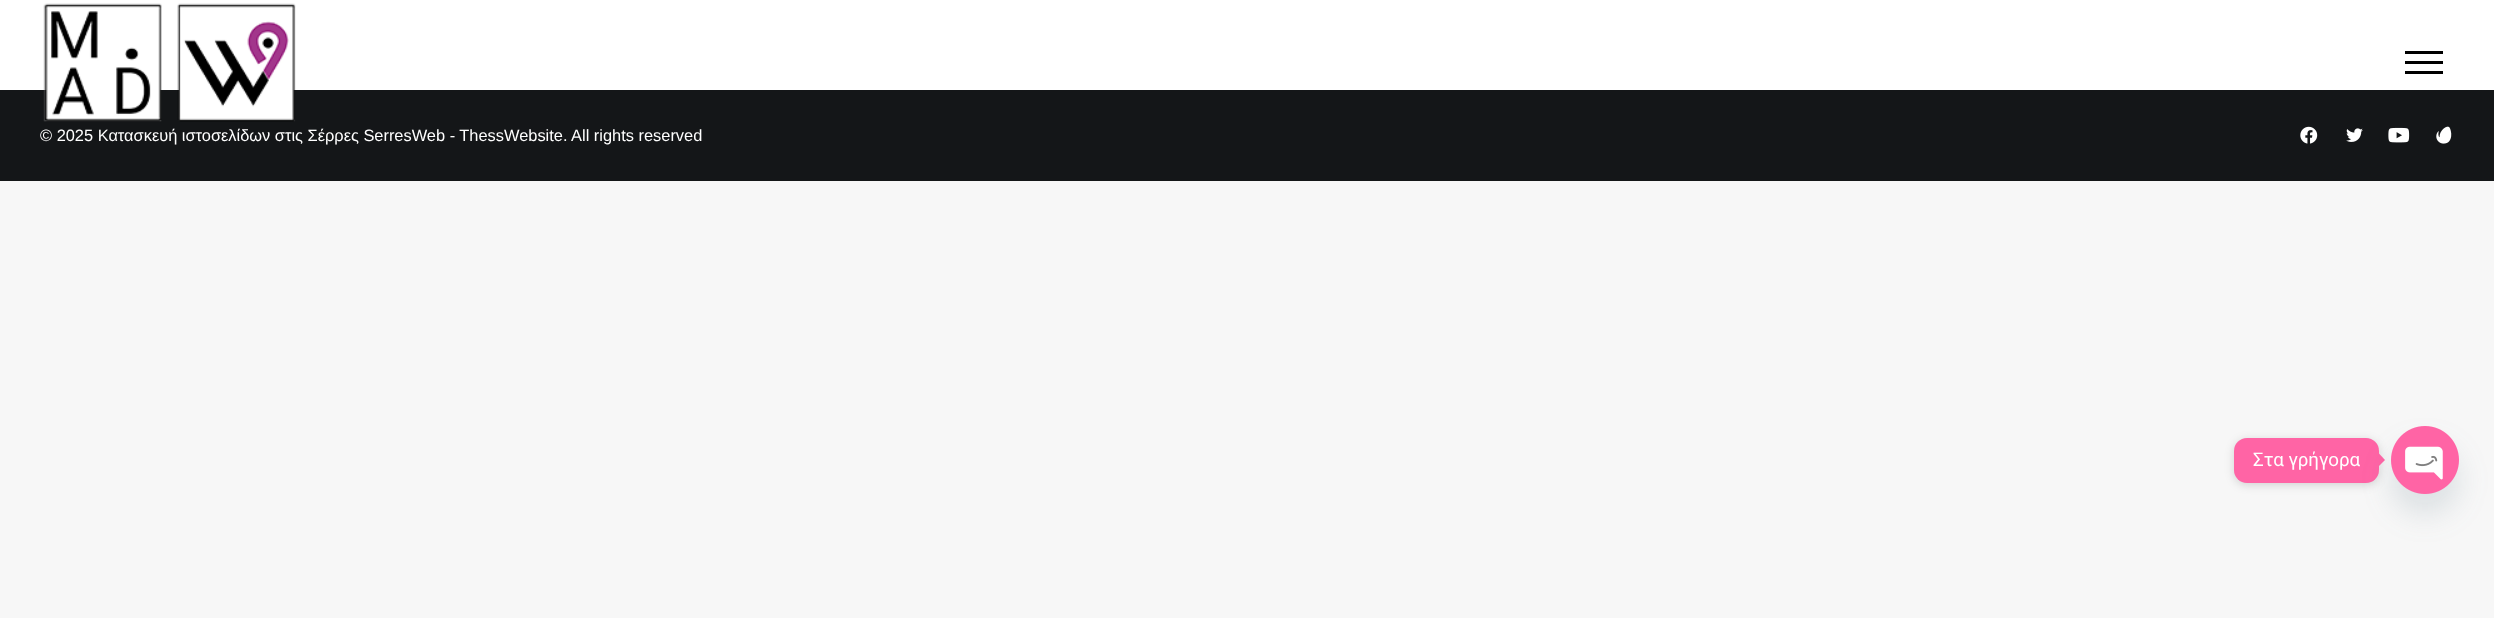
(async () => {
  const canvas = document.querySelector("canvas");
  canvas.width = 2494;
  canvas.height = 618;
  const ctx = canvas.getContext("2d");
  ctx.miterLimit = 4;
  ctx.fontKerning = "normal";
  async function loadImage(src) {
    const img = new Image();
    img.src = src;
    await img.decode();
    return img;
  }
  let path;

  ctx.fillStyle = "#f7f7f7";
  ctx.fillRect(0, 0, 2494, 618);
  for (const [x, y, w, h, color] of [
    [0, 0, 2494, 90, "#ffffff"],
    [2405, 61, 38, 3, "#000000"],
    [2405, 51, 38, 3, "#000000"],
    [2405, 71, 38, 3, "#000000"],
    [0, 90, 2494, 91, "#141618"],
  ]) {
    ctx.fillStyle = color;
    ctx.fillRect(x, y, w, h);
  }
  ctx.drawImage(await loadImage("img/1.png"), 43, 3, 253, 119);
  ctx.drawImage(await loadImage("img/2.png"), 2300, 126, 18, 18);
  ctx.drawImage(await loadImage("img/3.png"), 2346, 128, 17, 14);
  ctx.drawImage(await loadImage("img/4.png"), 2388, 127, 22, 16);
  ctx.drawImage(await loadImage("img/5.png"), 2436, 126, 16, 18);
  ctx.fillStyle = "rgba(0, 0, 0, 0.15)";
  ctx.filter = "blur(5px)";
  ctx.beginPath();
  ctx.roundRect(2234, 440, 145, 45, 13);
  ctx.fill();
  ctx.filter = "none";
  ctx.fillStyle = "#ff64a5";
  ctx.beginPath();
  ctx.roundRect(2234, 438, 145, 45, 13);
  ctx.fill();
  path = new Path2D("M2379 466V453.5L2385 460Z");
  ctx.fill(path);
  ctx.fillStyle = "rgba(73, 104, 126, 0.16)";
  ctx.filter = "blur(15px)";
  ctx.beginPath();
  ctx.roundRect(2391, 446, 68, 68, 34);
  ctx.fill();
  ctx.filter = "none";
  ctx.drawImage(await loadImage("img/6.png"), 2391, 426, 68, 68);
  ctx.font = "16.4px Liberation Sans";
  ctx.fillStyle = "#ffffff";
  ctx.fillText("© 2025 Κατασκευή ιστοσελίδων στις Σέρρες SerresWeb - ThessWebsite. All rights reserved", 40, 141);
  ctx.font = "18.75px Roboto";
  ctx.fillText("Στα γρήγορα", 2253, 466);
})();
